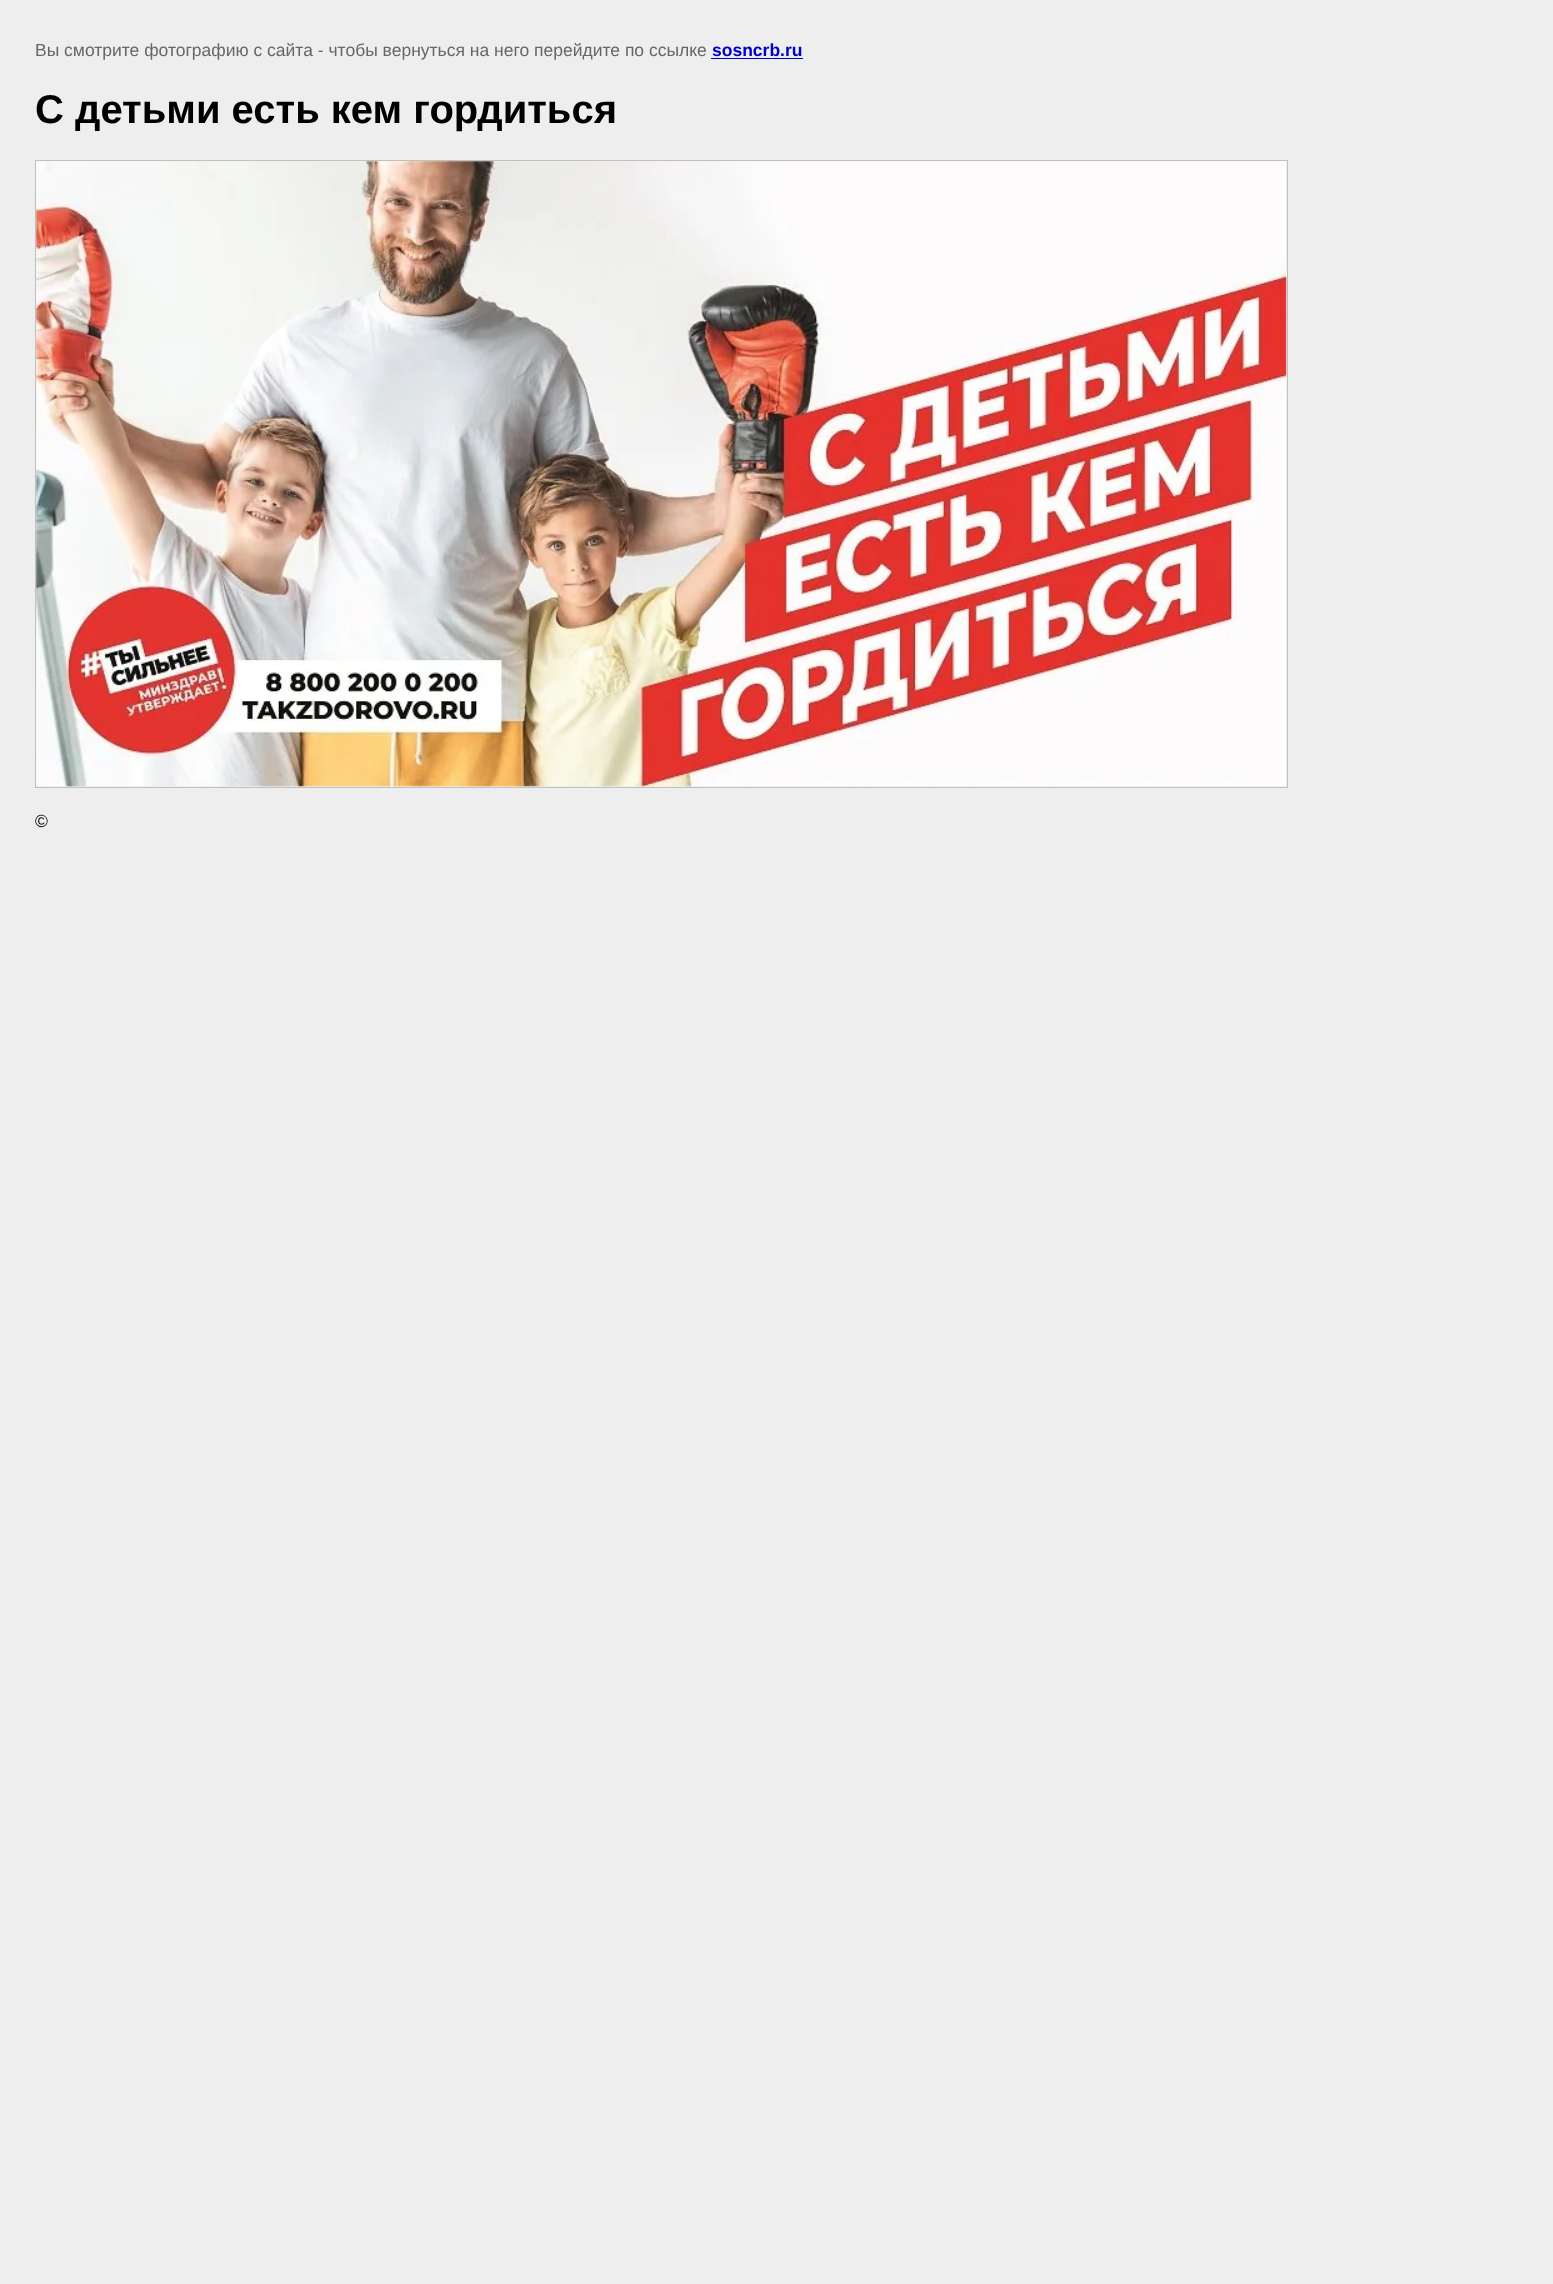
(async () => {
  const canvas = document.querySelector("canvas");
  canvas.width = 1553;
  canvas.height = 2284;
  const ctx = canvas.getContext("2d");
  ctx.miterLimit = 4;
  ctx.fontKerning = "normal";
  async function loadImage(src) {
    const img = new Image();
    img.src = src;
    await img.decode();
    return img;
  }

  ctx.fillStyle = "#eeeeee";
  ctx.fillRect(0, 0, 1553, 2284);
  ctx.fillStyle = "#0000cc";
  ctx.fillRect(711, 58, 92, 1);
  ctx.strokeStyle = "#c0c0c0";
  ctx.strokeRect(35.5, 160.5, 1252, 627);
  ctx.drawImage(await loadImage("img/1.png"), 36, 161, 1251, 626);
  ctx.font = "17.5px Liberation Sans";
  ctx.fillStyle = "#666666";
  ctx.fillText("Вы смотрите фотографию с сайта - чтобы вернуться на него перейдите по ссылке", 35, 56);
  ctx.font = "bold 17.5px Liberation Sans";
  ctx.fillStyle = "#0000cc";
  ctx.fillText("sosncrb.ru", 712, 56);
  ctx.font = "bold 40px Liberation Sans";
  ctx.fillStyle = "#000000";
  ctx.fillText("С детьми есть кем гордиться", 35, 123);
  ctx.font = "17.5px Liberation Sans";
  ctx.fillText("©", 35, 827);
})();
